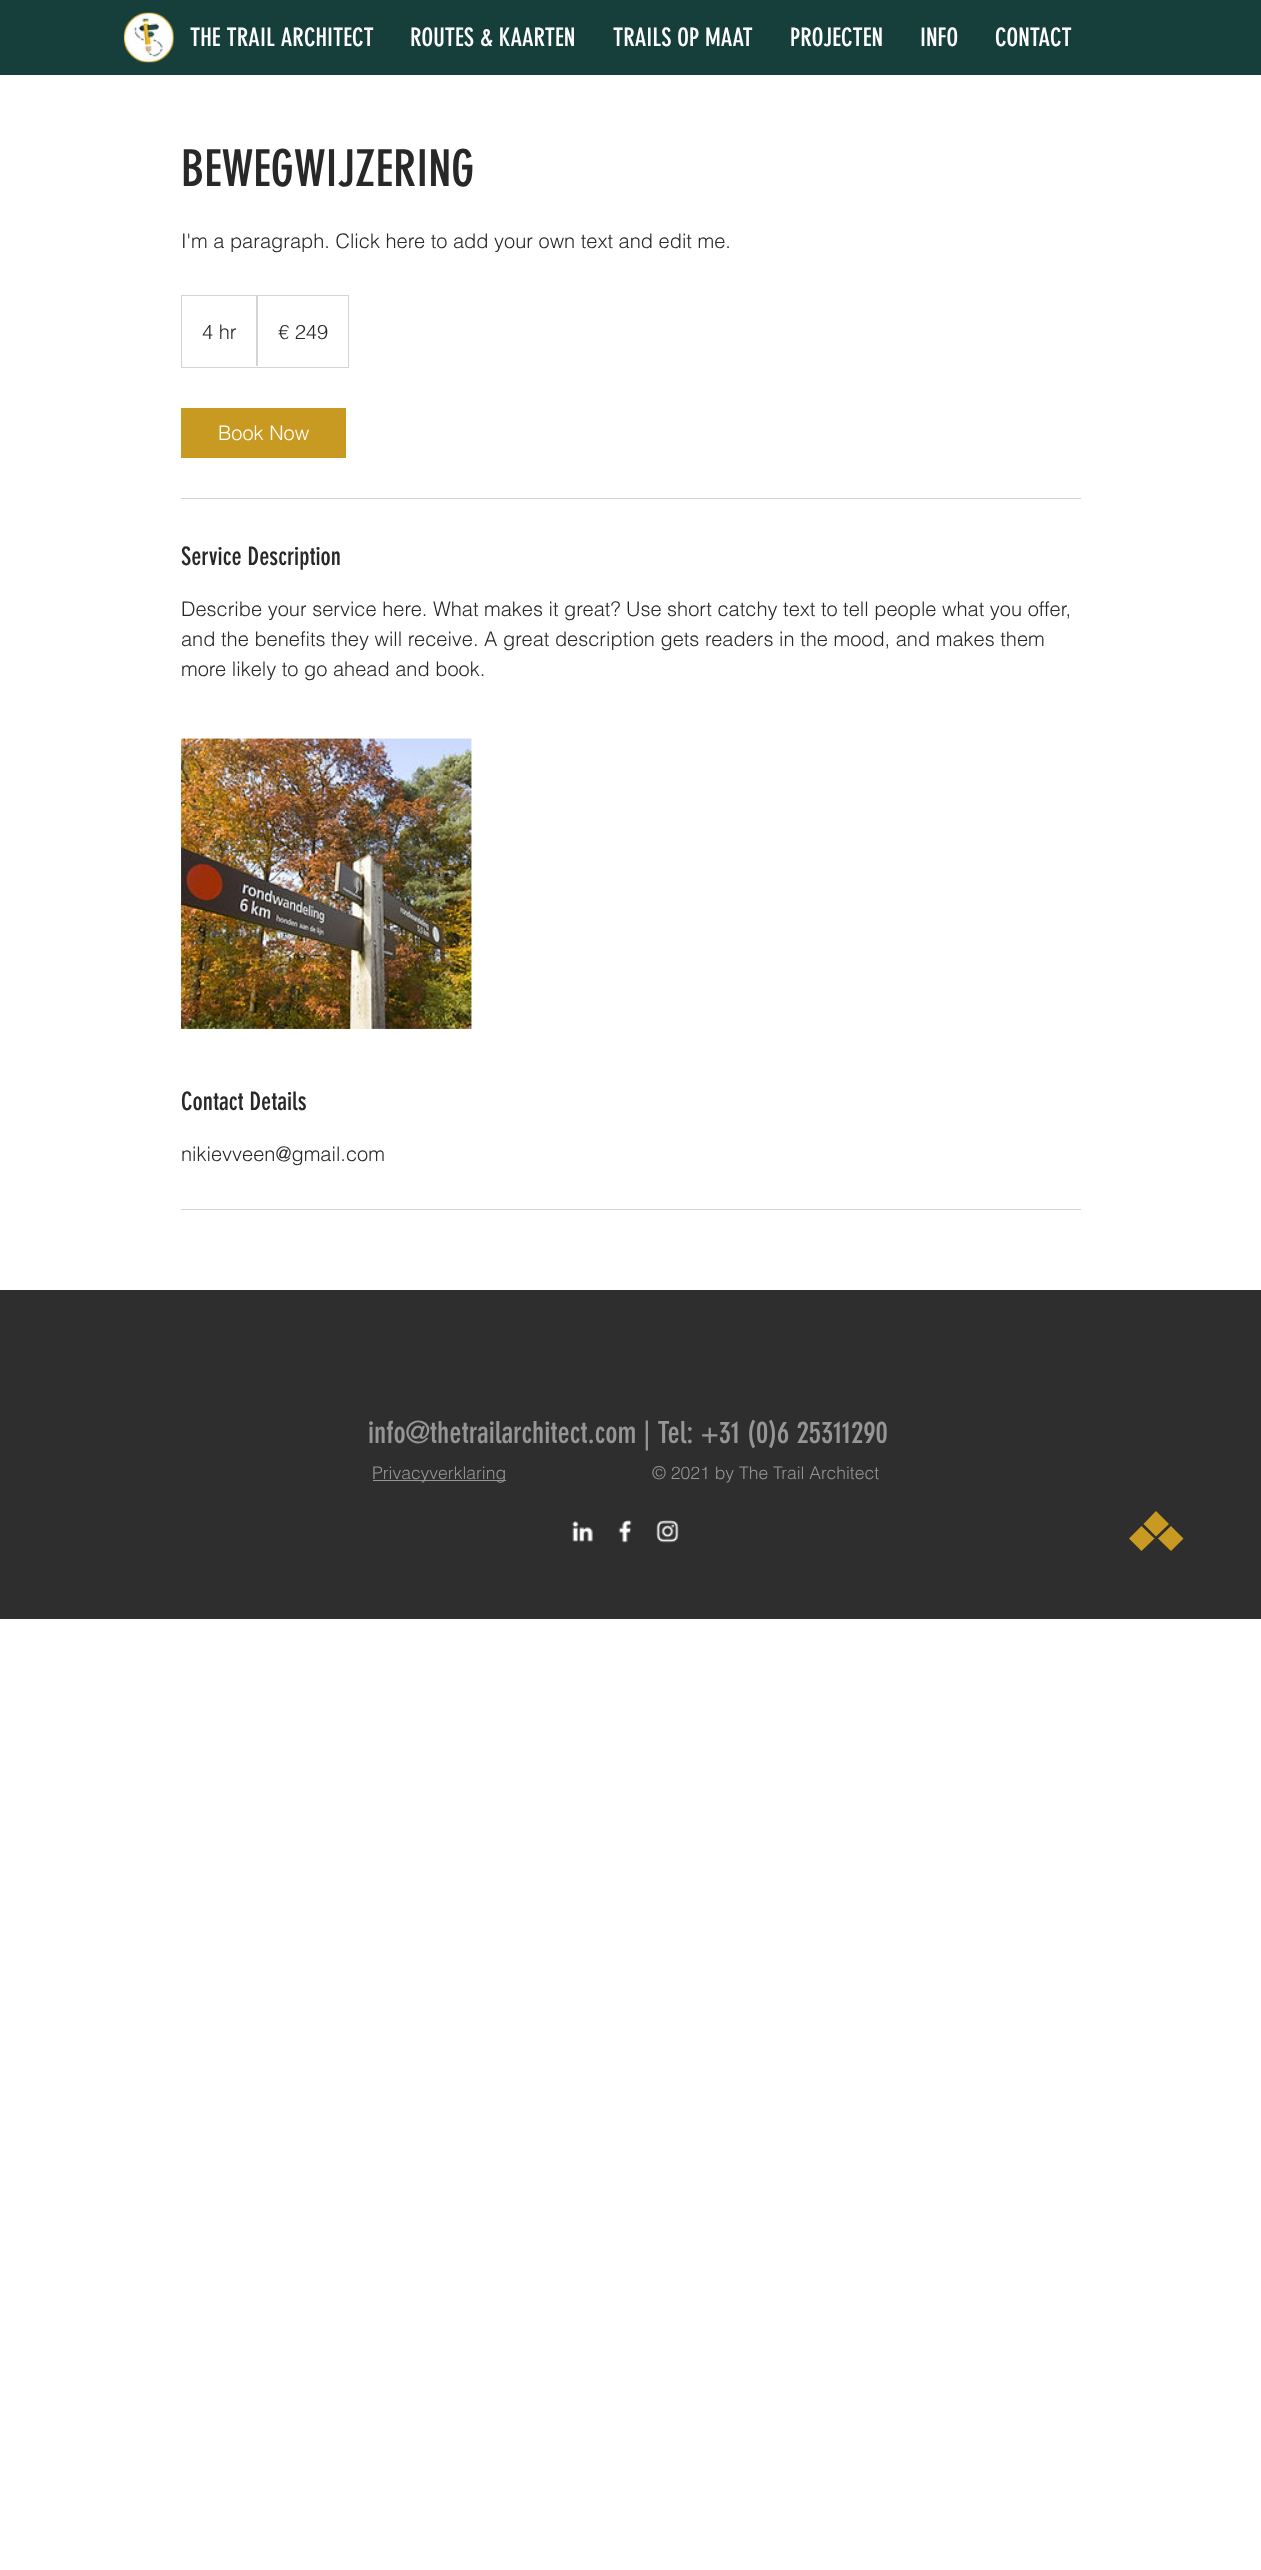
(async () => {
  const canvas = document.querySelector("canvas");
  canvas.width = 1261;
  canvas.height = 2570;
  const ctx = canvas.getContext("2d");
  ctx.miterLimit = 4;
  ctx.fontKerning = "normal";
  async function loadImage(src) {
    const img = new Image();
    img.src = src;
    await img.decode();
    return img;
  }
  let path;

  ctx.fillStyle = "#ffffff";
  ctx.fillRect(0, 0, 1261, 2570);
  ctx.fillStyle = "#163e3a";
  ctx.fillRect(0, 0, 1261, 75);
  ctx.drawImage(await loadImage("img/1.png"), 123, 12, 51, 51);
  ctx.strokeStyle = "#d4d4d4";
  ctx.strokeRect(181.5, 295.5, 167, 72);
  ctx.fillStyle = "#d4d4d4";
  path = new Path2D("M256 366V295L258 296V366Z");
  ctx.fill(path);
  ctx.fillStyle = "#c99a22";
  ctx.fillRect(181, 408, 165, 50);
  ctx.fillStyle = "#d4d4d4";
  ctx.fillRect(181, 498, 900, 1);
  ctx.drawImage(await loadImage("img/2.png"), 181, 738, 291, 291);
  ctx.drawImage(await loadImage("img/3.png"), 181, 738, 291, 291);
  for (const [x, y, w, h, color] of [
    [181, 1209, 900, 1, "#d4d4d4"],
    [0, 1290, 1261, 329, "#2f2e2e"],
    [373, 1480, 133, 1, "#969696"],
  ]) {
    ctx.fillStyle = color;
    ctx.fillRect(x, y, w, h);
  }
  ctx.drawImage(await loadImage("img/4.png"), 572, 1521, 21, 21);
  ctx.drawImage(await loadImage("img/5.png"), 618, 1520, 14, 23);
  ctx.drawImage(await loadImage("img/6.png"), 656, 1520, 23, 23);
  ctx.fillStyle = "#c99a22";
  path = new Path2D("M1156 1511L1143.5 1524L1156 1536.5L1169 1524Z");
  ctx.fill(path);
  path = new Path2D("M1171 1526L1158 1538.5L1171 1551L1183.5 1538.5ZM1129 1538.5L1141.5 1551L1154.5 1538.5L1141.5 1526Z");
  ctx.fill(path);
  ctx.font = "25px 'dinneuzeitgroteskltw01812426'";
  ctx.fillStyle = "#ffffff";
  for (const [text, x, y] of [
    ["THE TRAIL ARCHITECT", 190, 46],
    ["ROUTES & KAARTEN", 410, 46],
    ["TRAILS OP MAAT", 613, 46],
    ["PROJECTEN", 790, 46],
    ["INFO", 920, 46],
    ["CONTACT", 995, 46],
  ]) {
    ctx.fillText(text, x, y);
  }
  ctx.font = "50px 'dinneuzeitgroteskltw01812426'";
  ctx.fillStyle = "#282828";
  ctx.fillText("BEWEGWIJZERING", 181, 186);
  ctx.font = "300 20px helvetica";
  for (const [text, x, y] of [
    ["I'm a paragraph. Click here to add your own text and edit me.", 181, 248],
    ["4 hr", 202, 339],
    ["€ 249", 278, 339],
  ]) {
    ctx.fillText(text, x, y);
  }
  ctx.fillStyle = "#ffffff";
  ctx.fillText("Book Now", 218, 440);
  ctx.font = "25px 'dinneuzeitgroteskltw01812426'";
  ctx.fillStyle = "#282828";
  ctx.fillText("Service Description", 181, 565);
  ctx.font = "300 20px helvetica";
  for (const [text, x, y] of [
    ["Describe your service here. What makes it great? Use short catchy text to tell people what you offer,", 181, 616],
    ["and the benefits they will receive. A great description gets readers in the mood, and makes them", 181, 646],
    ["more likely to go ahead and book.", 181, 676],
  ]) {
    ctx.fillText(text, x, y);
  }
  ctx.font = "25px 'dinneuzeitgroteskltw01812426'";
  ctx.fillText("Contact Details", 181, 1110);
  ctx.font = "300 20px helvetica";
  ctx.fillText("nikievveen@gmail.com", 181, 1161);
  ctx.font = "30px 'dinneuzeitgroteskltw01812426'";
  ctx.fillStyle = "#969696";
  ctx.fillText("info@thetrailarchitect.com | Tel: +31 (0)6 25311290", 368, 1443);
  ctx.font = "300 17.5px helvetica";
  ctx.fillText("Privacyverklaring", 372, 1479);
  ctx.fillText("© 2021 by The Trail Architect", 652, 1479);
})();
